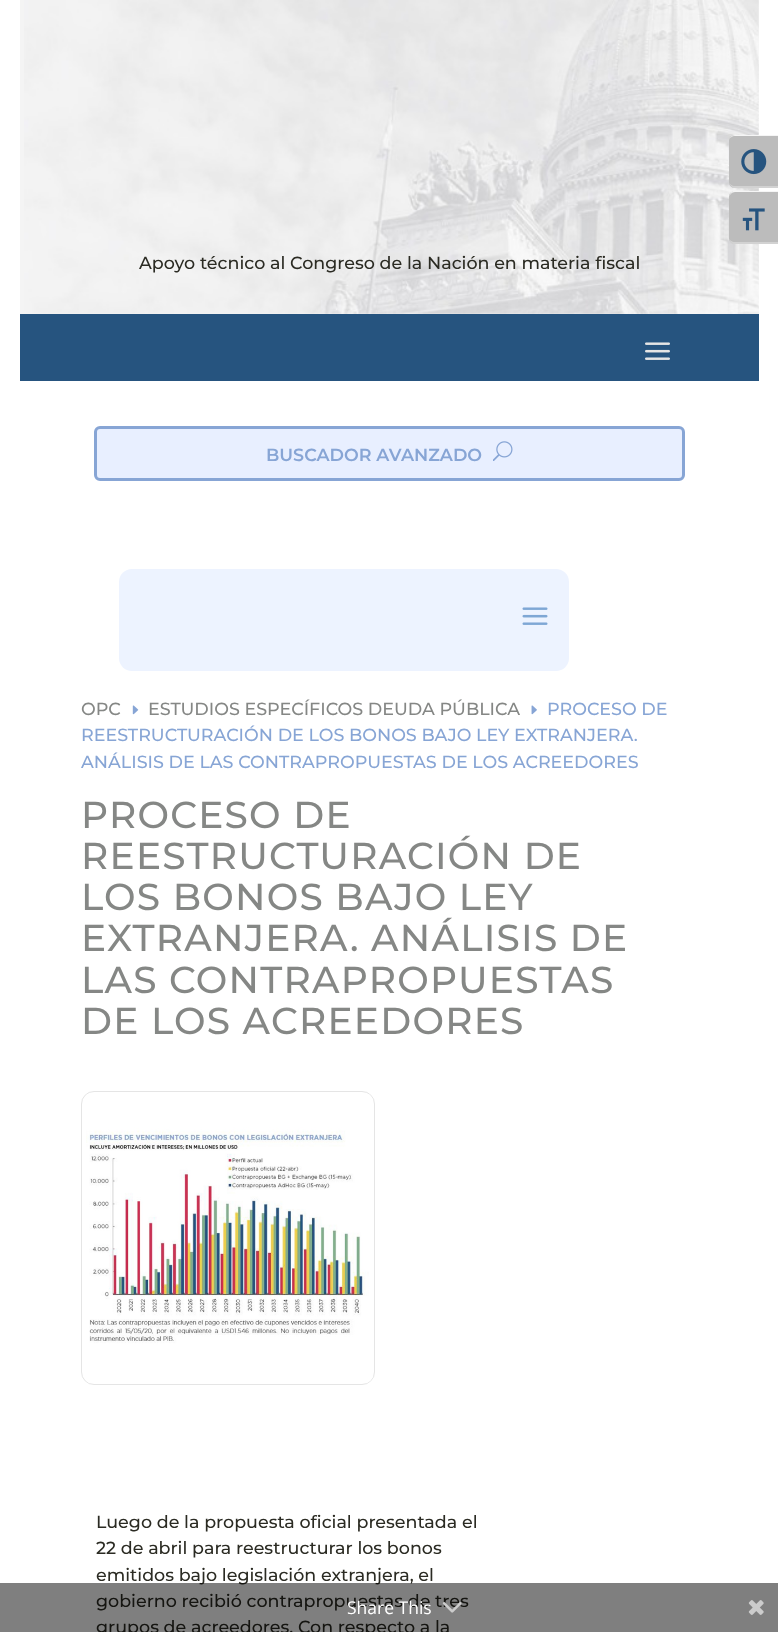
(async () => {
  const canvas = document.querySelector("canvas");
  canvas.width = 778;
  canvas.height = 1632;
  const ctx = canvas.getContext("2d");
  ctx.miterLimit = 4;
  ctx.fontKerning = "normal";
  async function loadImage(src) {
    const img = new Image();
    img.src = src;
    await img.decode();
    return img;
  }
  let path;

  ctx.fillStyle = "#ffffff";
  ctx.fillRect(0, 0, 778, 1632);
  ctx.fillStyle = "#f4f4f4";
  ctx.fillRect(20, 0, 739, 314);
  ctx.drawImage(await loadImage("img/3.png"), 24, 0, 735, 314);
  ctx.fillStyle = "#bcbcbc";
  path = new Path2D("M735 135H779V188H735C731.5 188 729 185.5 729 182V141C729 137.5 731.5 135 735 135Z");
  ctx.fill(path);
  ctx.fillStyle = "#f5f5f5";
  path = new Path2D("M735 135C732 135 729 138 729 141C729 138 732 136 735 136H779V135Z");
  ctx.fill(path);
  ctx.fillStyle = "#d2d2d2";
  path = new Path2D("M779 188H733C731 186 729 184 729 181C729 184 732 186 735 186H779Z");
  ctx.fill(path);
  ctx.drawImage(await loadImage("img/1.png"), 741, 149, 26, 26);
  ctx.fillStyle = "#bcbcbc";
  path = new Path2D("M735 191H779V244H735C731.5 244 729 241.5 729 238V197C729 193.5 731.5 191 735 191Z");
  ctx.fill(path);
  ctx.fillStyle = "#f5f5f5";
  path = new Path2D("M735 192H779V191H733C731 192 729 195 729 198C729 195 732 192 735 192Z");
  ctx.fill(path);
  ctx.fillStyle = "#d2d2d2";
  path = new Path2D("M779 244H733C731 243 729 240 729 238C729 240 732 242 735 242H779Z");
  ctx.fill(path);
  ctx.drawImage(await loadImage("img/2.png"), 742, 208, 23, 23);
  ctx.fillStyle = "#26547f";
  ctx.fillRect(20, 314, 739, 67);
  ctx.drawImage(await loadImage("img/4.png"), 645, 342, 25, 18);
  ctx.fillStyle = "#e8efff";
  ctx.beginPath();
  ctx.roundRect(95.5, 427.5, 588, 52, 4.5);
  ctx.fill();
  ctx.strokeStyle = "#87a5d5";
  ctx.lineWidth = 3;
  ctx.stroke();
  ctx.drawImage(await loadImage("img/5.png"), 493, 441, 20, 20);
  ctx.fillStyle = "#edf3ff";
  ctx.beginPath();
  ctx.roundRect(119, 569, 450, 102, 13);
  ctx.fill();
  ctx.drawImage(await loadImage("img/6.png"), 522, 607, 26, 18);
  ctx.drawImage(await loadImage("img/7.png"), 132, 705, 7, 10);
  ctx.drawImage(await loadImage("img/8.png"), 531, 705, 6, 10);
  ctx.beginPath();
  ctx.roundRect(81.5, 1091.5, 293, 293, 12.5);
  ctx.strokeStyle = "#e5e5e5";
  ctx.lineWidth = 1;
  ctx.stroke();
  ctx.drawImage(await loadImage("img/9.png"), 86, 1094, 287, 289);
  ctx.font = "500 17.5px Montserrat";
  ctx.fillStyle = "#2b2b23";
  ctx.fillText("Apoyo técnico al Congreso de la Nación en materia fiscal", 139, 269);
  ctx.font = "600 17.5px Montserrat";
  ctx.fillStyle = "#87a5d5";
  ctx.fillText("BUSCADOR AVANZADO", 266, 461);
  ctx.font = "500 17.5px Montserrat";
  ctx.fillStyle = "#858785";
  ctx.fillText("OPC", 81, 715);
  ctx.fillText("ESTUDIOS ESPECÍFICOS DEUDA PÚBLICA", 148, 715);
  ctx.fillStyle = "#87a5d5";
  for (const [text, x, y] of [
    ["PROCESO DE", 547, 715],
    ["REESTRUCTURACIÓN DE LOS BONOS BAJO LEY EXTRANJERA.", 81, 741],
    ["ANÁLISIS DE LAS CONTRAPROPUESTAS DE LOS ACREEDORES", 81, 768],
  ]) {
    ctx.fillText(text, x, y);
  }
  ctx.letterSpacing = "1.25px";
  ctx.font = "500 37.5px Montserrat";
  ctx.fillStyle = "#858785";
  for (const [text, x, y] of [
    ["PROCESO DE", 81, 828],
    ["REESTRUCTURACIÓN DE", 81, 869],
    ["LOS BONOS BAJO LEY", 81, 910],
    ["EXTRANJERA. ANÁLISIS DE", 81, 951],
    ["LAS CONTRAPROPUESTAS", 81, 993],
    ["DE LOS ACREEDORES", 81, 1034],
  ]) {
    ctx.fillText(text, x, y);
  }
  ctx.letterSpacing = "0px";
  ctx.font = "500 17.5px Montserrat";
  ctx.fillStyle = "#2b2b23";
  for (const [text, x, y] of [
    ["Luego de la propuesta oficial presentada el", 96, 1528],
    ["22 de abril para reestructurar los bonos", 96, 1554],
    ["emitidos bajo legislación extranjera, el", 96, 1581],
    ["gobierno recibió contrapropuestas de tres", 96, 1607],
    ["grupos de acreedores. Con respecto a la", 96, 1633],
  ]) {
    ctx.fillText(text, x, y);
  }
  ctx.fillStyle = "rgba(0, 0, 0, 0.5)";
  ctx.fillRect(0, 1583, 778, 49);
  ctx.font = "17.5px Open Sans";
  ctx.fillStyle = "#ffffff";
  ctx.fillText("Share This", 347, 1614);
  ctx.drawImage(await loadImage("img/10.png"), 442, 1602, 20, 11);
  ctx.drawImage(await loadImage("img/11.png"), 748, 1600, 16, 15);
})();
